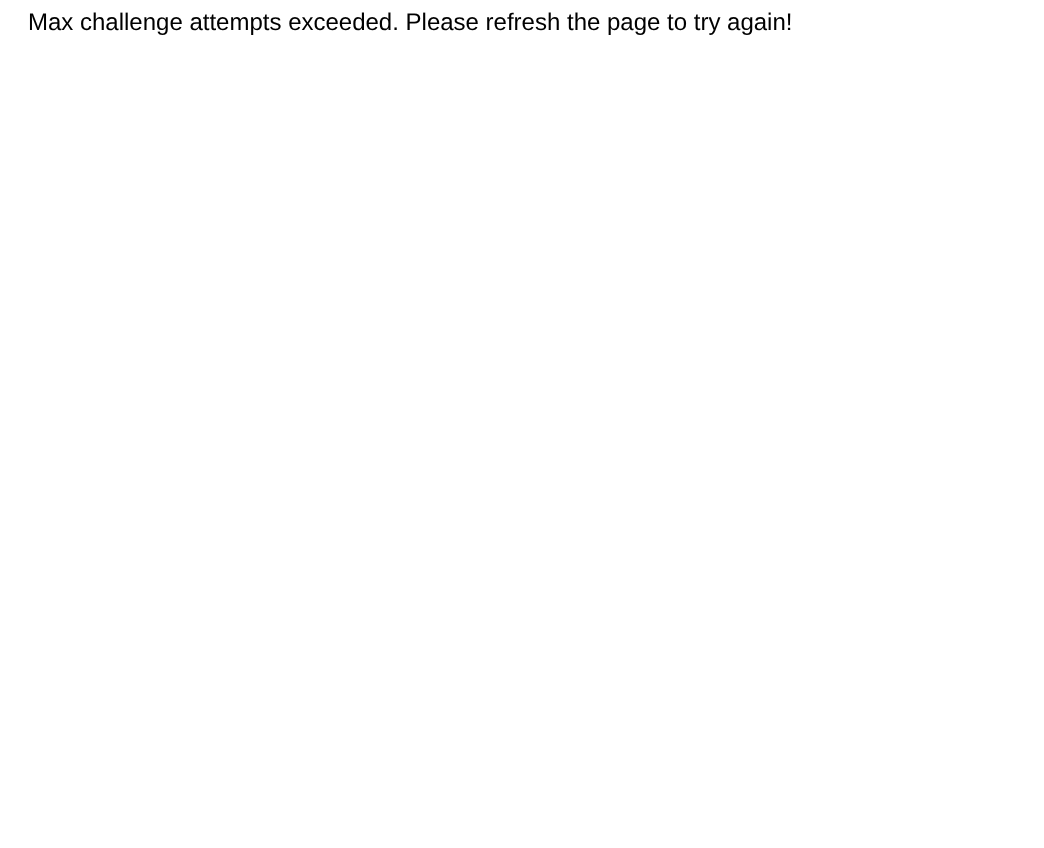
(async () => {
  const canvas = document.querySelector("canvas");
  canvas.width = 1044;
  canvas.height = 848;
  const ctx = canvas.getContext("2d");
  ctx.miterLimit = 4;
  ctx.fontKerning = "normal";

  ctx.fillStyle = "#ffffff";
  ctx.fillRect(0, 0, 1044, 848);
  ctx.font = "24px Liberation Sans";
  ctx.fillStyle = "#000000";
  ctx.fillText("Max challenge attempts exceeded. Please refresh the page to try again!", 28, 30);
})();
